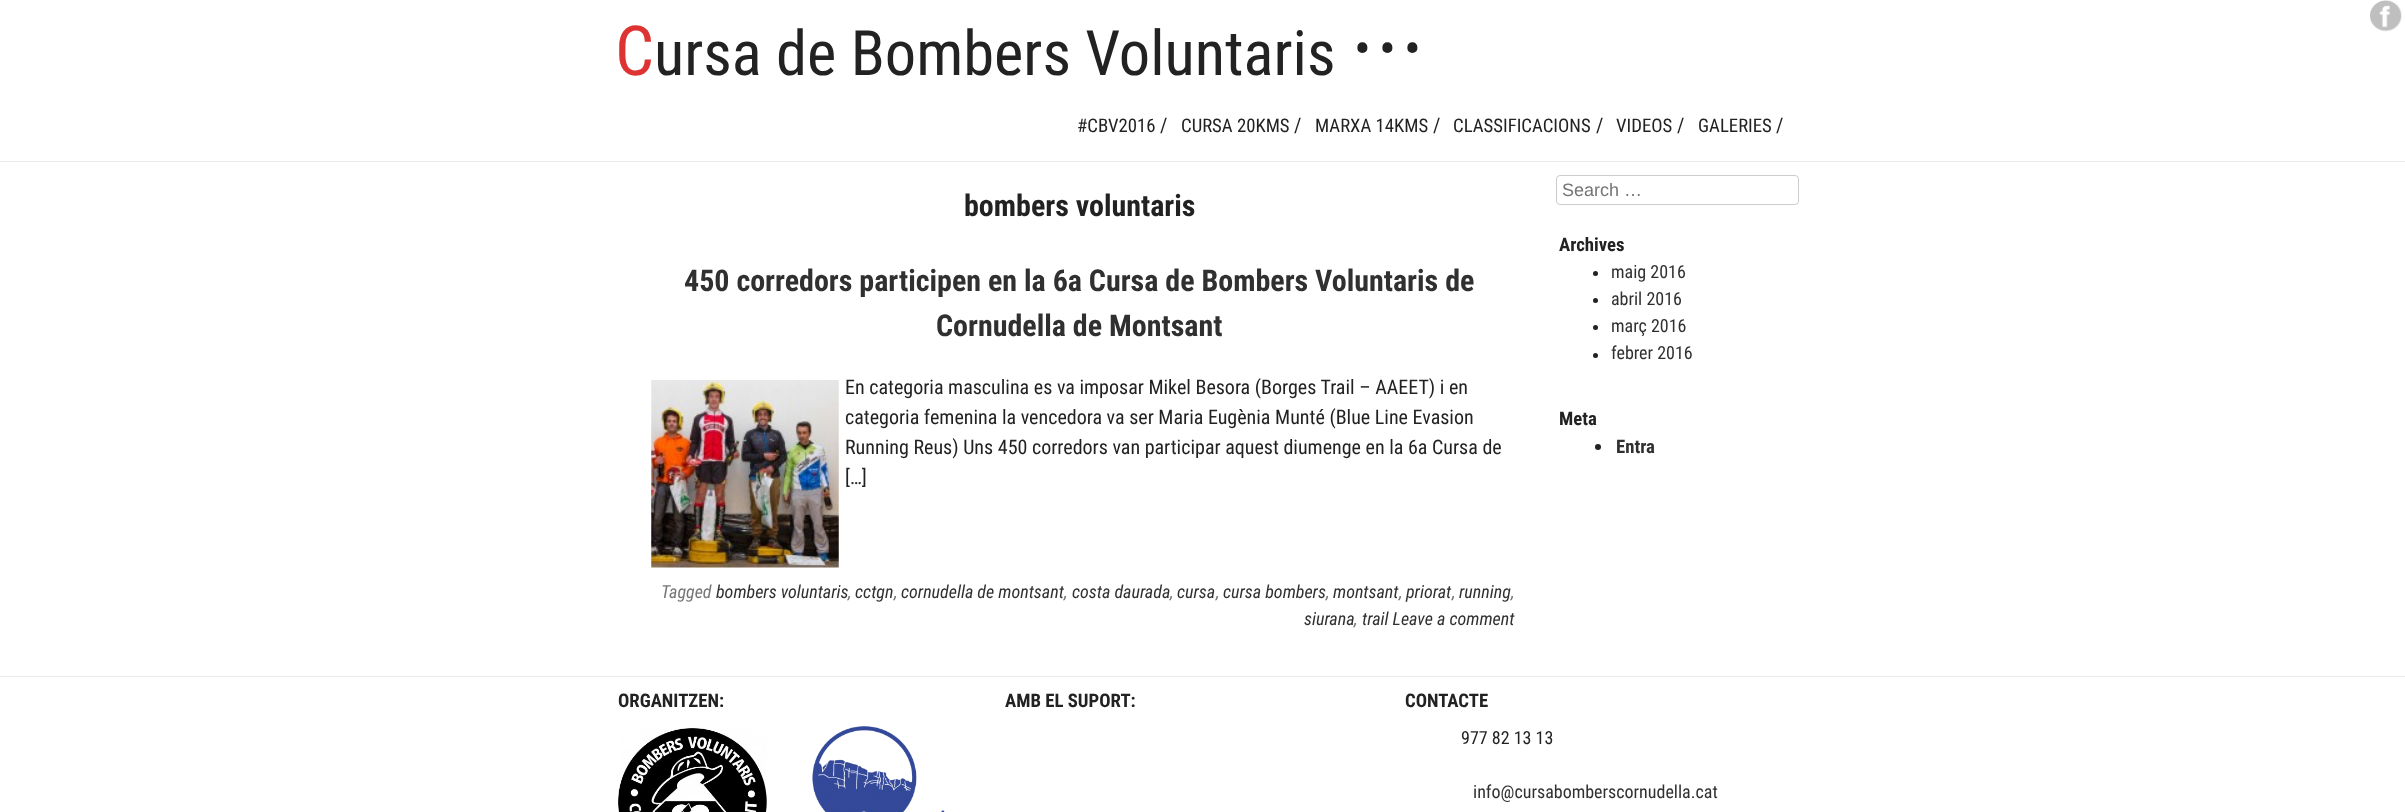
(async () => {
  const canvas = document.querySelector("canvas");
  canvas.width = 2405;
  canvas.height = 812;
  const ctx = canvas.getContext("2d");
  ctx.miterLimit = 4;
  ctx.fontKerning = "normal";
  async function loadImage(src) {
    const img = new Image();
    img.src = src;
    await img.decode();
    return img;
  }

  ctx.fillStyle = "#ffffff";
  ctx.fillRect(0, 0, 2405, 812);
  ctx.fillStyle = "#eaeaea";
  ctx.fillRect(0, 161, 2405, 1);
  ctx.drawImage(await loadImage("img/1.png"), 2370, 0, 32, 32);
  ctx.drawImage(await loadImage("img/2.png"), 651, 380, 188, 188);
  ctx.beginPath();
  ctx.roundRect(1556.5, 175.5, 242, 29, 3.5);
  ctx.strokeStyle = "#cccccc";
  ctx.stroke();
  ctx.fillStyle = "#222222";
  ctx.beginPath();
  ctx.arc(1595.5, 273.5, 2.5, 0, Math.PI * 2);
  ctx.fill();
  ctx.beginPath();
  ctx.arc(1595.5, 300.5, 2.5, 0, Math.PI * 2);
  ctx.fill();
  ctx.beginPath();
  ctx.arc(1595.5, 327.5, 2.5, 0, Math.PI * 2);
  ctx.fill();
  ctx.beginPath();
  ctx.arc(1595.5, 355.5, 2.5, 0, Math.PI * 2);
  ctx.fill();
  ctx.beginPath();
  ctx.arc(1598, 447, 3, 0, Math.PI * 2);
  ctx.fill();
  ctx.fillStyle = "#eaeaea";
  ctx.fillRect(0, 676, 2405, 1);
  ctx.drawImage(await loadImage("img/3.png"), 618, 727, 149, 85);
  ctx.drawImage(await loadImage("img/4.png"), 812, 726, 133, 86);
  ctx.font = "69px Roboto Condensed";
  ctx.fillStyle = "#dd3333";
  ctx.fillText("C", 615, 75);
  ctx.font = "62.5px Roboto Condensed";
  ctx.fillStyle = "#222222";
  ctx.fillText("ursa de Bombers Voluntaris", 654, 75);
  ctx.font = "50px Roboto Condensed";
  for (const [text, x, y] of [
    ["•", 1354, 66],
    ["•", 1379, 66],
    ["•", 1404, 66],
  ]) {
    ctx.fillText(text, x, y);
  }
  ctx.font = "18.75px Roboto Condensed";
  ctx.fillText("#CBV2016", 1077, 132);
  ctx.font = "20px Roboto Condensed";
  ctx.fillText("/", 1160, 132);
  ctx.font = "18.75px Roboto Condensed";
  ctx.fillText("CURSA 20KMS", 1181, 132);
  ctx.font = "20px Roboto Condensed";
  ctx.fillText("/", 1294, 132);
  ctx.font = "18.75px Roboto Condensed";
  ctx.fillText("MARXA 14KMS", 1315, 132);
  ctx.font = "20px Roboto Condensed";
  ctx.fillText("/", 1433, 132);
  ctx.font = "18.75px Roboto Condensed";
  ctx.fillText("CLASSIFICACIONS", 1453, 132);
  ctx.font = "20px Roboto Condensed";
  ctx.fillText("/", 1596, 132);
  ctx.font = "18.75px Roboto Condensed";
  ctx.fillText("VIDEOS", 1616, 132);
  ctx.font = "20px Roboto Condensed";
  ctx.fillText("/", 1677, 132);
  ctx.font = "18.75px Roboto Condensed";
  ctx.fillText("GALERIES", 1698, 132);
  ctx.font = "20px Roboto Condensed";
  ctx.fillText("/", 1776, 132);
  ctx.font = "bold 30px Roboto Condensed";
  ctx.fillText("bombers voluntaris", 964, 216);
  ctx.fillStyle = "#303030";
  ctx.fillText("450 corredors participen en la 6a Cursa de Bombers Voluntaris de", 684, 291);
  ctx.fillText("Cornudella de Montsant", 936, 336);
  ctx.font = "20px Roboto Condensed";
  ctx.fillStyle = "#222222";
  for (const [text, x, y] of [
    ["En categoria masculina es va imposar Mikel Besora (Borges Trail – AAEET) i en", 845, 394],
    ["categoria femenina la vencedora va ser Maria Eugènia Munté (Blue Line Evasion", 845, 424],
    ["Running Reus) Uns 450 corredors van participar aquest diumenge en la 6a Cursa de", 845, 454],
    ["[…]", 845, 484],
  ]) {
    ctx.fillText(text, x, y);
  }
  ctx.font = "italic 18px Roboto Condensed";
  ctx.fillStyle = "#757575";
  ctx.fillText("Tagged", 661, 598);
  ctx.fillStyle = "#303030";
  for (const [text, x, y] of [
    ["bombers voluntaris", 716, 598],
    ["cctgn", 855, 598],
    ["cornudella de montsant", 901, 598],
    ["costa daurada", 1072, 598],
    ["cursa", 1177, 598],
    ["cursa bombers", 1223, 598],
    ["montsant", 1333, 598],
    ["priorat", 1406, 598],
    ["running", 1459, 598],
  ]) {
    ctx.fillText(text, x, y);
  }
  ctx.fillStyle = "#757575";
  for (const [text, x, y] of [
    [",", 848, 598],
    [",", 894, 598],
    [",", 1064, 598],
    [",", 1170, 598],
    [",", 1216, 598],
    [",", 1326, 598],
    [",", 1399, 598],
    [",", 1452, 598],
    [",", 1511, 598],
  ]) {
    ctx.fillText(text, x, y);
  }
  ctx.fillStyle = "#303030";
  ctx.fillText("siurana", 1304, 625);
  ctx.fillStyle = "#757575";
  ctx.fillText(",", 1354, 625);
  ctx.fillStyle = "#303030";
  ctx.fillText("trail Leave a comment", 1362, 625);
  ctx.font = "18px Liberation Sans";
  ctx.fillStyle = "#757575";
  ctx.fillText("Search …", 1562, 196);
  ctx.font = "bold 18.75px Roboto Condensed";
  ctx.fillStyle = "#222222";
  ctx.fillText("Archives", 1559, 251);
  ctx.font = "18px Roboto Condensed";
  ctx.fillStyle = "#303030";
  for (const [text, x, y] of [
    ["maig 2016", 1611, 278],
    ["abril 2016", 1611, 305],
    ["març 2016", 1611, 332],
    ["febrer 2016", 1611, 359],
  ]) {
    ctx.fillText(text, x, y);
  }
  ctx.font = "bold 18.75px Roboto Condensed";
  ctx.fillStyle = "#222222";
  ctx.fillText("Meta", 1559, 425);
  ctx.fillStyle = "#303030";
  ctx.fillText("Entra", 1616, 453);
  ctx.fillStyle = "#222222";
  for (const [text, x, y] of [
    ["ORGANITZEN:", 618, 707],
    ["AMB EL SUPORT:", 1005, 707],
    ["CONTACTE", 1405, 707],
  ]) {
    ctx.fillText(text, x, y);
  }
  ctx.font = "18px Roboto Condensed";
  ctx.fillText("977 82 13 13", 1461, 744);
  ctx.fillStyle = "#303030";
  ctx.fillText("info@cursabomberscornudella.cat", 1473, 798);
})();
